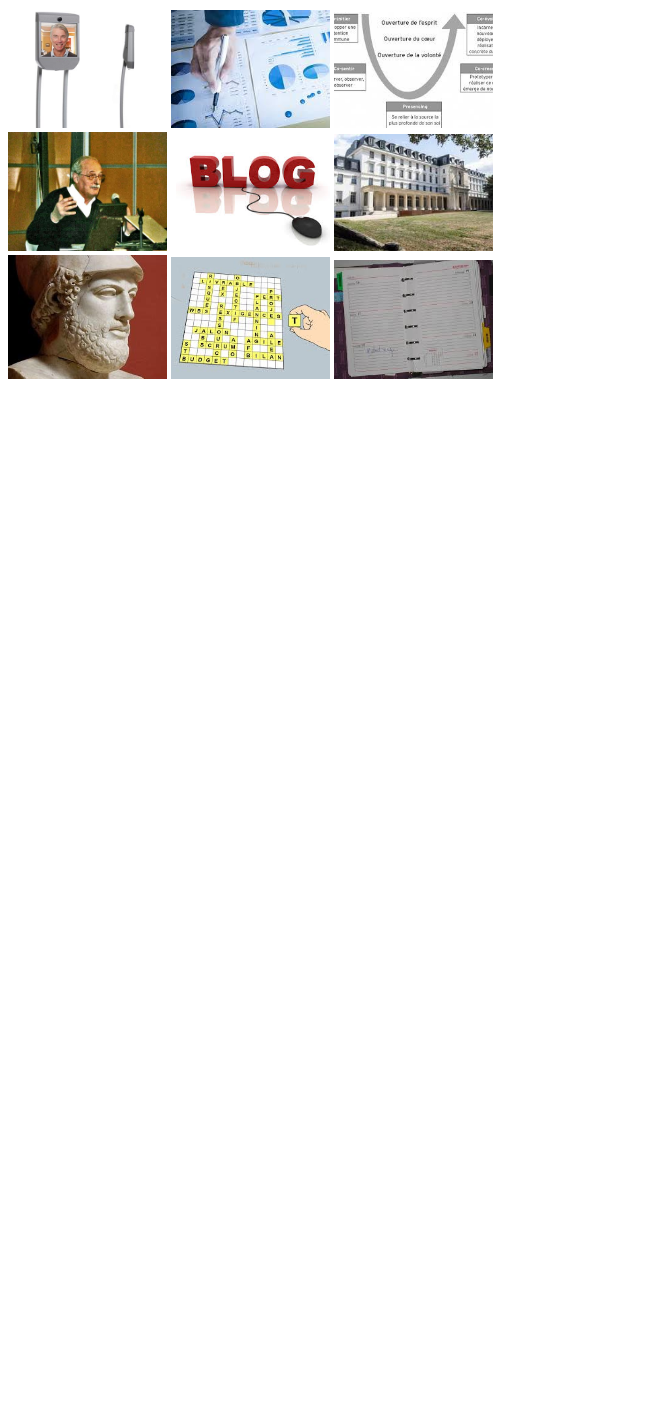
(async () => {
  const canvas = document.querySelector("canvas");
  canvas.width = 652;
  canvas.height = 1421;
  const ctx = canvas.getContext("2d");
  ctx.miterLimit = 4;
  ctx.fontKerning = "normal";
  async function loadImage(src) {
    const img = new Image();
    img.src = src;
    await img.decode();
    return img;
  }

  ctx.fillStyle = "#ffffff";
  ctx.fillRect(0, 0, 652, 1421);
  ctx.drawImage(await loadImage("img/1.png"), 35, 11, 100, 117);
  ctx.drawImage(await loadImage("img/2.png"), 171, 10, 159, 118);
  ctx.drawImage(await loadImage("img/3.png"), 334, 12, 159, 116);
  ctx.drawImage(await loadImage("img/4.png"), 8, 132, 159, 119);
  ctx.drawImage(await loadImage("img/5.png"), 176, 152, 154, 94);
  ctx.drawImage(await loadImage("img/6.png"), 334, 134, 159, 117);
  ctx.drawImage(await loadImage("img/7.png"), 8, 255, 159, 124);
  ctx.drawImage(await loadImage("img/8.png"), 171, 257, 159, 122);
  ctx.drawImage(await loadImage("img/9.png"), 334, 260, 159, 119);
})();
